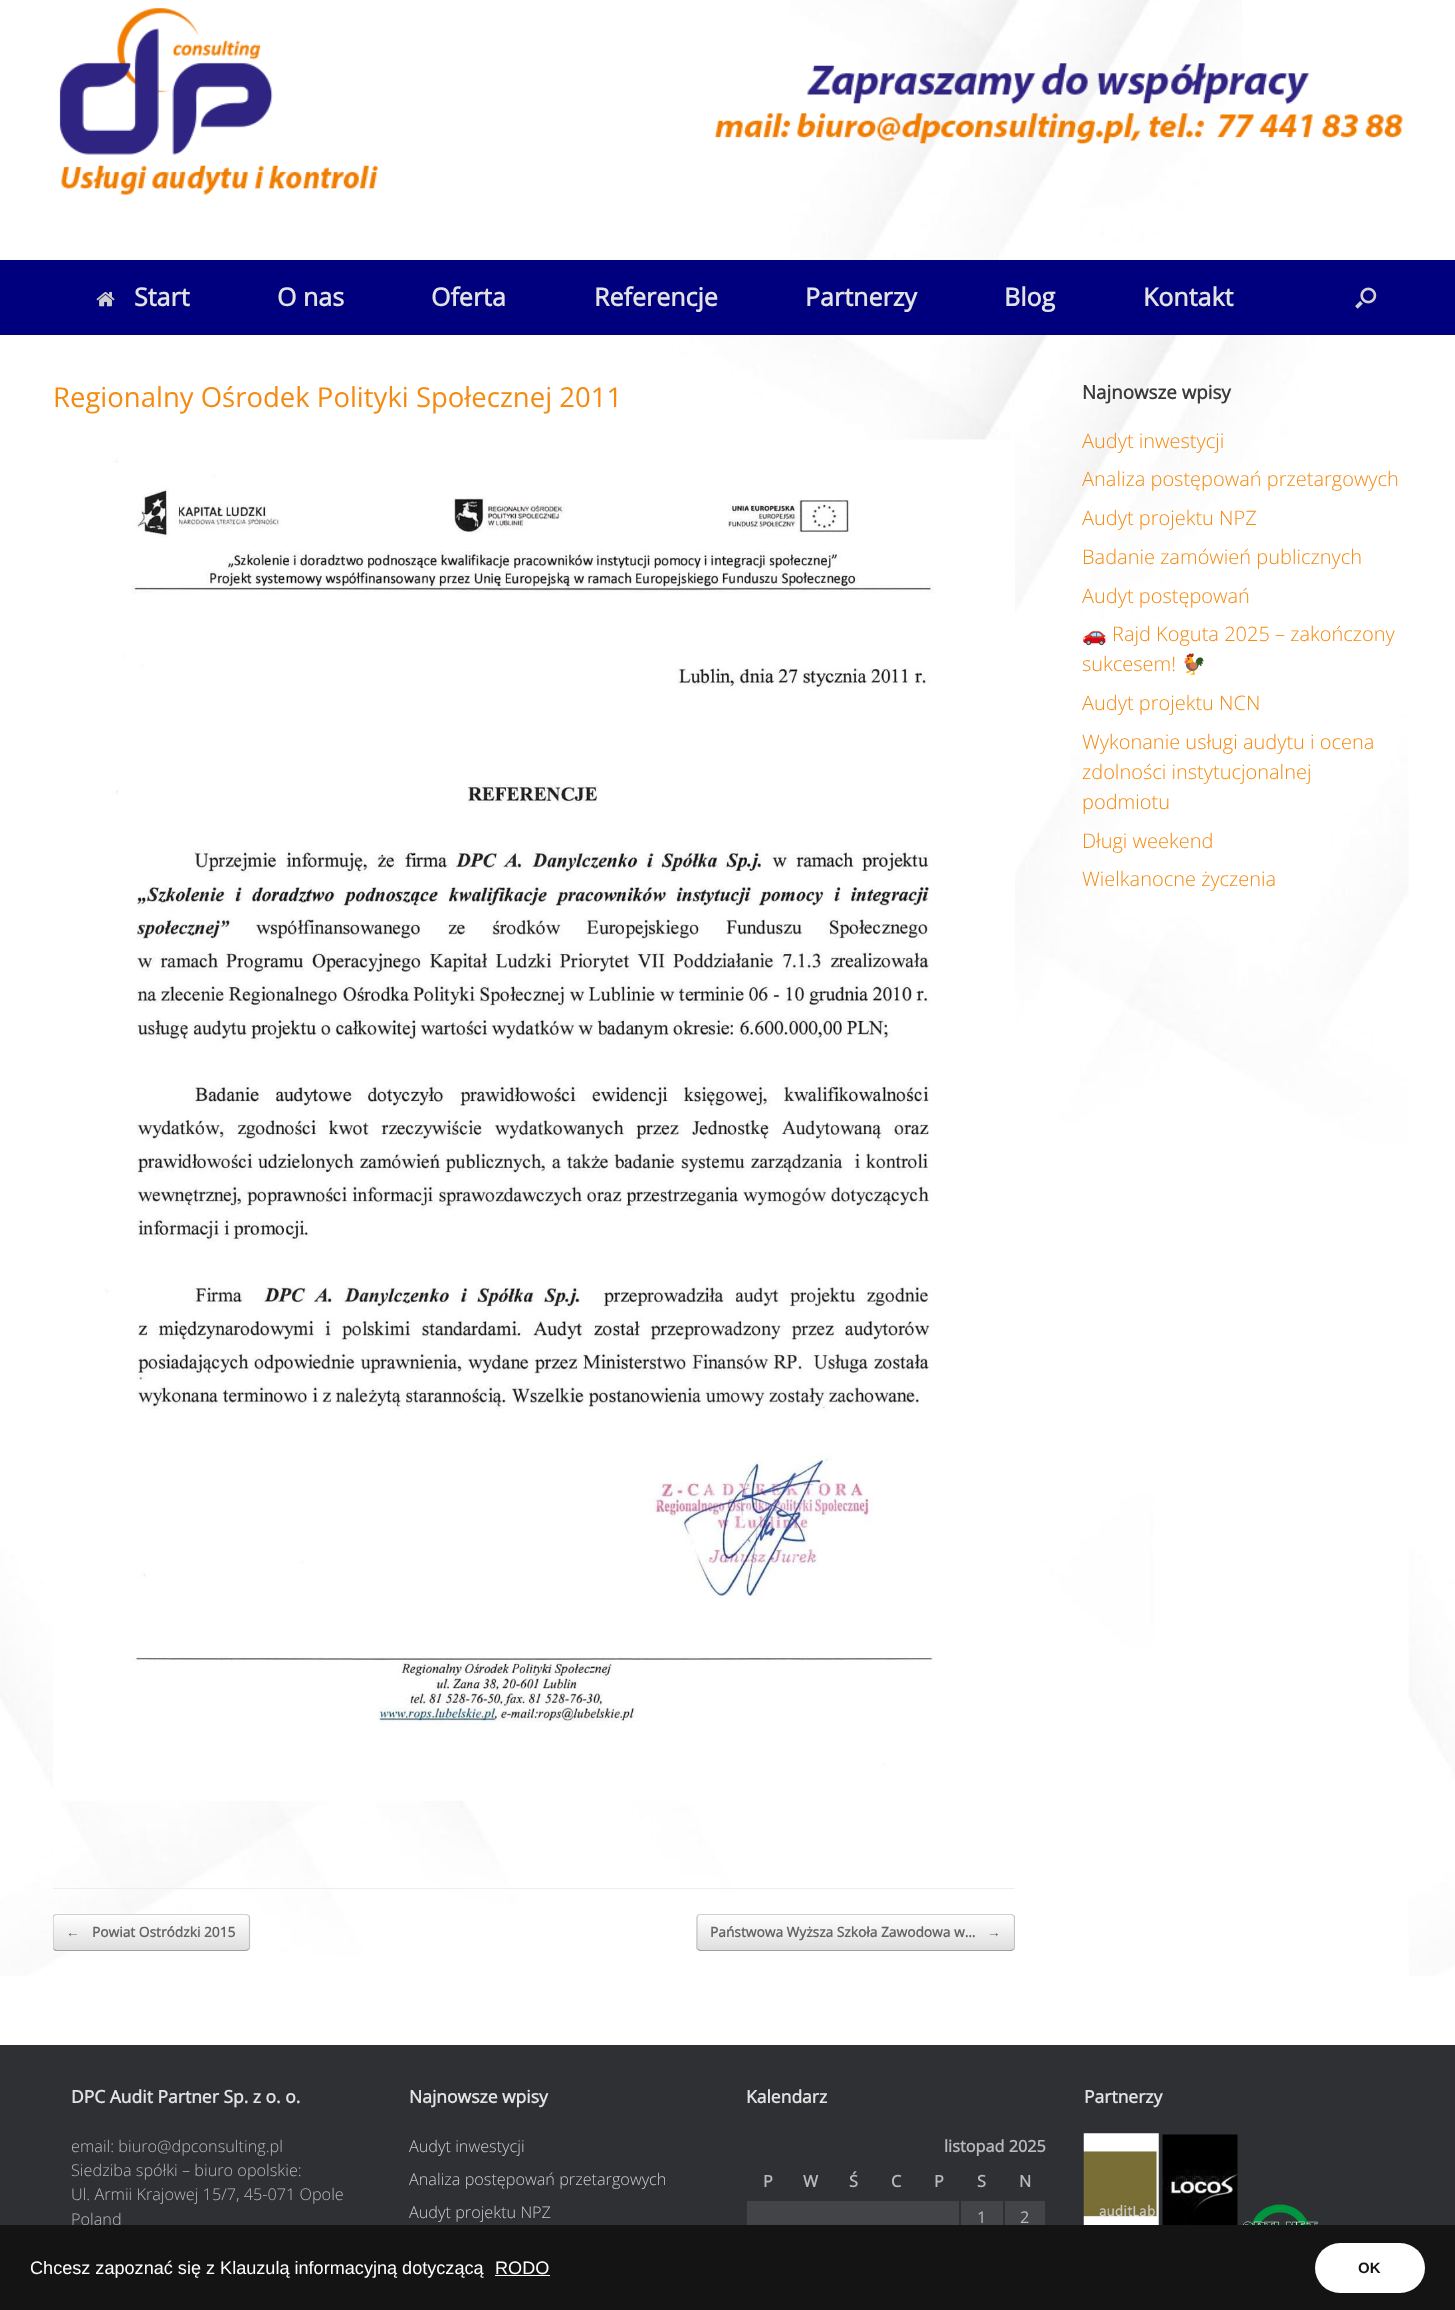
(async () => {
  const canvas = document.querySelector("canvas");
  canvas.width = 1455;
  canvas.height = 2310;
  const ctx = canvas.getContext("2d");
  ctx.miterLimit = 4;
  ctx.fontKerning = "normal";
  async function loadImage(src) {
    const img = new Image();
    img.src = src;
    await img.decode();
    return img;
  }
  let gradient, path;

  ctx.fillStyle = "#2f3033";
  ctx.fillRect(0, 0, 1455, 2310);
  ctx.fillStyle = "#ffffff";
  ctx.fillRect(0, 0, 1455, 260);
  ctx.drawImage(await loadImage("img/1.png"), 790, 0, 452, 260);
  ctx.drawImage(await loadImage("img/2.png"), 59, 8, 319, 187);
  ctx.drawImage(await loadImage("img/3.png"), 715, 63, 688, 81);
  ctx.fillStyle = "#00007f";
  ctx.fillRect(0, 260, 1455, 75);
  ctx.drawImage(await loadImage("img/4.png"), 96, 291, 19, 16);
  ctx.drawImage(await loadImage("img/5.png"), 1355, 287, 22, 22);
  ctx.fillStyle = "#ffffff";
  ctx.fillRect(0, 1976, 1455, 69);
  ctx.drawImage(await loadImage("img/6.png"), 0, 335, 1455, 1641);
  ctx.fillStyle = "#eeeeee";
  ctx.fillRect(53, 1888, 962, 1);
  ctx.drawImage(await loadImage("img/7.png"), 53, 439, 962, 1362);
  ctx.save();
  ctx.beginPath();
  ctx.roundRect(53, 1914, 197, 37, 4);
  ctx.clip();
  gradient = ctx.createLinearGradient(54, 1915, 54, 1880);
  gradient.addColorStop(0, "#dfdfdf");
  gradient.addColorStop(1, "#ffffff");
  ctx.fillStyle = gradient;
  ctx.fillRect(53, 1914, 197, 1);
  gradient = ctx.createLinearGradient(54, 1950, 54, 1915);
  gradient.addColorStop(0, "#dfdfdf");
  gradient.addColorStop(1, "#ffffff");
  ctx.fillStyle = gradient;
  ctx.fillRect(53, 1915, 197, 35);
  ctx.restore();
  ctx.save();
  ctx.beginPath();
  ctx.rect(53, 1914, 962, 37);
  ctx.clip();
  path = new Path2D("M54 1915.5L56 1914.5H246L248.5 1915.5");
  ctx.strokeStyle = "#d2d2d2";
  ctx.lineWidth = 1.2;
  ctx.stroke(path);
  ctx.restore();
  path = new Path2D("M248.5 1915.5C249 1916 249.5 1916.5 249.5 1917.5V1947.5C249.5 1948.5 249 1949 248.5 1949.5");
  ctx.strokeStyle = "#c3c3c3";
  ctx.lineWidth = 1.2;
  ctx.stroke(path);
  ctx.save();
  ctx.beginPath();
  ctx.rect(53, 1914, 962, 37);
  ctx.clip();
  path = new Path2D("M248.5 1949.5L246 1950.5H56L54 1949.5");
  ctx.strokeStyle = "#9f9f9f";
  ctx.stroke(path);
  path = new Path2D("M54 1949.5C53.5 1949 53 1948.5 53 1947.5V1917.5C53 1916.5 53.5 1916 54 1915.5");
  ctx.strokeStyle = "#c3c3c3";
  ctx.stroke(path);
  ctx.restore();
  ctx.save();
  ctx.beginPath();
  ctx.roundRect(696, 1914, 319, 37, 4);
  ctx.clip();
  gradient = ctx.createLinearGradient(698, 1915, 698, 1880);
  gradient.addColorStop(0, "#dfdfdf");
  gradient.addColorStop(1, "#ffffff");
  ctx.fillStyle = gradient;
  ctx.fillRect(696, 1914, 319, 1);
  gradient = ctx.createLinearGradient(698, 1950, 698, 1915);
  gradient.addColorStop(0, "#dfdfdf");
  gradient.addColorStop(1, "#ffffff");
  ctx.fillStyle = gradient;
  ctx.fillRect(696, 1915, 319, 35);
  ctx.restore();
  ctx.save();
  ctx.beginPath();
  ctx.rect(53, 1914, 962, 37);
  ctx.clip();
  path = new Path2D("M698 1915.5L700 1914.5H1011L1013.5 1915.5");
  ctx.strokeStyle = "#d2d2d2";
  ctx.stroke(path);
  path = new Path2D("M1013.5 1915.5C1014 1916 1014.5 1916.5 1014.5 1917.5V1947.5C1014.5 1948.5 1014 1949 1013.5 1949.5");
  ctx.strokeStyle = "#c3c3c3";
  ctx.stroke(path);
  path = new Path2D("M1013.5 1949.5L1011 1950.5H700L698 1949.5");
  ctx.strokeStyle = "#9f9f9f";
  ctx.stroke(path);
  ctx.restore();
  path = new Path2D("M698 1949.5C697 1949 697 1948.5 697 1947.5V1917.5C697 1916.5 697 1916 698 1915.5");
  ctx.stroke(path);
  for (const [x, y, w, h, color] of [
    [747, 2201, 212, 24, "#434447"],
    [961, 2201, 42, 24, "#434447"],
    [1005, 2201, 40, 24, "#434447"],
  ]) {
    ctx.fillStyle = color;
    ctx.fillRect(x, y, w, h);
  }
  ctx.drawImage(await loadImage("img/8.png"), 1083, 2133, 76, 92);
  ctx.drawImage(await loadImage("img/9.png"), 1162, 2134, 76, 91);
  ctx.drawImage(await loadImage("img/10.png"), 1242, 2204, 76, 21);
  ctx.font = "bold 25px Open Sans";
  ctx.fillStyle = "#e2e2e2";
  for (const [text, x, y] of [
    ["Start", 134, 306],
    ["O nas", 277, 306],
    ["Oferta", 431, 306],
    ["Referencje", 594, 306],
    ["Partnerzy", 805, 306],
    ["Blog", 1004, 306],
    ["Kontakt", 1143, 306],
  ]) {
    ctx.fillText(text, x, y);
  }
  ctx.font = "27.5px Open Sans";
  ctx.fillStyle = "#f58a11";
  ctx.fillText("Regionalny Ośrodek Polityki Społecznej 2011", 53, 407);
  ctx.font = "bold 13.75px Liberation Serif";
  ctx.fillStyle = "#646464";
  ctx.fillText("←", 66, 1937);
  ctx.font = "bold 13.75px Open Sans";
  ctx.fillText("Powiat Ostródzki 2015", 92, 1937);
  ctx.fillText("Państwowa Wyższa Szkoła Zawodowa w…", 710, 1937);
  ctx.font = "bold 13.75px Liberation Serif";
  ctx.fillText("→", 987, 1937);
  ctx.font = "bold 18.75px Open Sans";
  ctx.fillStyle = "#3b3b3b";
  ctx.fillText("Najnowsze wpisy", 1082, 399);
  ctx.font = "300 20px Open Sans";
  ctx.fillStyle = "#f58a11";
  for (const [text, x, y] of [
    ["Audyt inwestycji", 1082, 448],
    ["Analiza postępowań przetargowych", 1082, 486],
    ["Audyt projektu NPZ", 1082, 525],
    ["Badanie zamówień publicznych", 1082, 564],
    ["Audyt postępowań", 1082, 603],
  ]) {
    ctx.fillText(text, x, y);
  }
  ctx.font = "20px Noto Color Emoji";
  ctx.fillText("🚗", 1082, 641);
  ctx.font = "300 20px Open Sans";
  ctx.fillText("Rajd Koguta 2025 – zakończony", 1112, 641);
  ctx.fillText("sukcesem!", 1082, 671);
  ctx.font = "20px Noto Color Emoji";
  ctx.fillText("🐓", 1181, 671);
  ctx.font = "300 20px Open Sans";
  for (const [text, x, y] of [
    ["Audyt projektu NCN", 1082, 710],
    ["Wykonanie usługi audytu i ocena", 1082, 749],
    ["zdolności instytucjonalnej", 1082, 779],
    ["podmiotu", 1082, 809],
    ["Długi weekend", 1082, 848],
    ["Wielkanocne życzenia", 1082, 886],
  ]) {
    ctx.fillText(text, x, y);
  }
  ctx.font = "bold 17.5px Open Sans";
  ctx.fillStyle = "#e2e2e2";
  ctx.fillText("DPC Audit Partner Sp. z o. o.", 71, 2103);
  ctx.font = "300 16.25px Open Sans";
  ctx.fillStyle = "#b9b9b9";
  for (const [text, x, y] of [
    ["email: biuro@dpconsulting.pl", 71, 2152],
    ["Siedziba spółki – biuro opolskie:", 71, 2176],
    ["Ul. Armii Krajowej 15/7, 45-071 Opole", 71, 2200],
    ["Poland", 71, 2225],
  ]) {
    ctx.fillText(text, x, y);
  }
  ctx.font = "bold 17.5px Open Sans";
  ctx.fillStyle = "#e2e2e2";
  ctx.fillText("Najnowsze wpisy", 409, 2103);
  ctx.font = "300 16.25px Open Sans";
  ctx.fillStyle = "#cccccc";
  for (const [text, x, y] of [
    ["Audyt inwestycji", 409, 2152],
    ["Analiza postępowań przetargowych", 409, 2185],
    ["Audyt projektu NPZ", 409, 2218],
  ]) {
    ctx.fillText(text, x, y);
  }
  ctx.font = "bold 17.5px Open Sans";
  ctx.fillStyle = "#e2e2e2";
  ctx.fillText("Kalendarz", 746, 2103);
  ctx.font = "bold 16.25px Open Sans";
  ctx.fillStyle = "#b9b9b9";
  for (const [text, x, y] of [
    ["listopad 2025", 944, 2152],
    ["P", 763, 2187],
    ["W", 803, 2187],
    ["Ś", 849, 2187],
    ["C", 891, 2187],
    ["P", 934, 2187],
    ["S", 977, 2187],
    ["N", 1019, 2187],
  ]) {
    ctx.fillText(text, x, y);
  }
  ctx.font = "16.25px Open Sans";
  ctx.fillText("1", 977, 2223);
  ctx.fillText("2", 1020, 2223);
  ctx.font = "bold 17.5px Open Sans";
  ctx.fillStyle = "#e2e2e2";
  ctx.fillText("Partnerzy", 1084, 2103);
  ctx.fillStyle = "#141414";
  ctx.fillRect(0, 2225, 1455, 85);
  ctx.font = "18.1px Liberation Sans";
  ctx.fillStyle = "#ffffff";
  ctx.fillText("Chcesz zapoznać się z Klauzulą informacyjną dotyczącą", 30, 2274);
  ctx.fillText("RODO", 495, 2274);
  ctx.fillRect(495, 2275, 55, 1);
  ctx.beginPath();
  ctx.roundRect(1315, 2243, 110, 50, 25);
  ctx.fill();
  ctx.font = "bold 15px Liberation Sans";
  ctx.fillStyle = "#141414";
  ctx.fillText("OK", 1358, 2273);
})();
